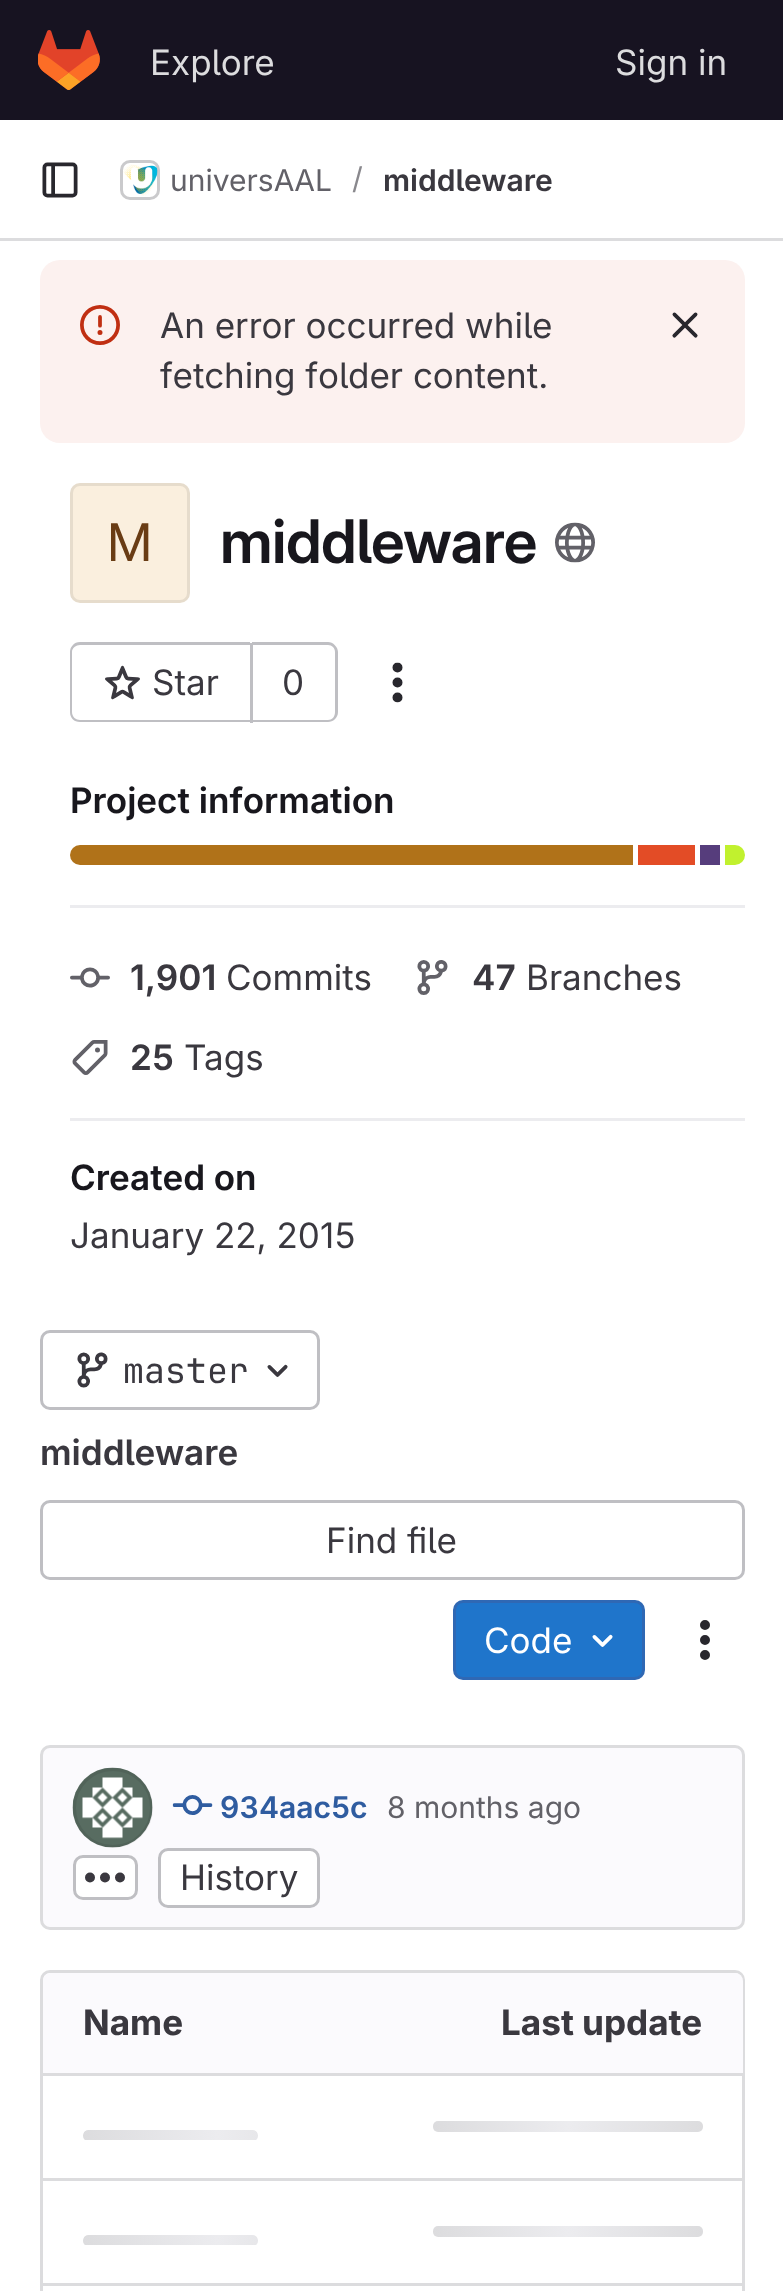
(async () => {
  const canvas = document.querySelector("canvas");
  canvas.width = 783;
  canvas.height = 2291;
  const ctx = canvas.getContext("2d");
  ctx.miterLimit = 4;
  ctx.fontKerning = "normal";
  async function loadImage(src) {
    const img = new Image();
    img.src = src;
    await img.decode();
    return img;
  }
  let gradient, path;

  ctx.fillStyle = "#ffffff";
  ctx.fillRect(0, 0, 783, 2291);
  ctx.fillStyle = "#171321";
  ctx.fillRect(0, 0, 783, 120);
  ctx.drawImage(await loadImage("img/1.png"), 38, 30, 62, 60);
  ctx.fillStyle = "#dcdcde";
  ctx.fillRect(0, 238, 783, 3);
  ctx.drawImage(await loadImage("img/2.png"), 42, 162, 36, 36);
  ctx.beginPath();
  ctx.roundRect(121.5, 161.5, 37, 37, 8.5);
  ctx.strokeStyle = "#dcdcde";
  ctx.lineWidth = 3;
  ctx.stroke();
  ctx.drawImage(await loadImage("img/3.png"), 123, 164, 35, 32);
  ctx.beginPath();
  ctx.roundRect(121.5, 161.5, 37, 37, 8.5);
  ctx.strokeStyle = "rgba(5, 5, 6, 0.08)";
  ctx.stroke();
  ctx.fillStyle = "#fcf1ef";
  ctx.beginPath();
  ctx.roundRect(40, 260, 705, 183, 20);
  ctx.fill();
  ctx.drawImage(await loadImage("img/4.png"), 80, 305, 40, 40);
  ctx.drawImage(await loadImage("img/5.png"), 672, 312, 26, 26);
  ctx.fillStyle = "#faefde";
  ctx.beginPath();
  ctx.roundRect(70, 483, 120, 120, 10);
  ctx.fill();
  ctx.beginPath();
  ctx.roundRect(71.5, 484.5, 117, 117, 8.5);
  ctx.stroke();
  ctx.drawImage(await loadImage("img/6.png"), 555, 522, 40, 41);
  ctx.fillStyle = "#bfbfc3";
  path = new Path2D("M80 642H250V722H80C74 722 70 718 70 712V652C70 647 74 642 80 642ZM80 645H250V720H80C76 720 72 717 72 712V652C72 648 76 645 80 645Z");
  ctx.fill(path, "evenodd");
  ctx.drawImage(await loadImage("img/7.png"), 105, 665, 35, 35);
  path = new Path2D("M252 642H328C333 642 338 647 338 652V712C338 718 333 722 328 722H252ZM252 645H328C332 645 335 648 335 652V712C335 717 332 720 328 720H252Z");
  ctx.fill(path, "evenodd");
  ctx.fillRect(250, 643, 3, 80);
  ctx.drawImage(await loadImage("img/8.png"), 392, 662, 11, 41);
  ctx.fillStyle = "#ececef";
  ctx.fillRect(70, 905, 675, 3);
  ctx.fillStyle = "#b07219";
  ctx.beginPath();
  ctx.roundRect(70, 845, 563, 20, [10, 0, 0, 10]);
  ctx.fill();
  ctx.fillStyle = "#e34c26";
  ctx.fillRect(638, 845, 57, 20);
  ctx.fillStyle = "#563d7c";
  ctx.fillRect(700, 845, 20, 20);
  ctx.fillStyle = "#c1f12e";
  ctx.beginPath();
  ctx.roundRect(725, 845, 20, 20, [0, 10, 10, 0]);
  ctx.fill();
  ctx.fillStyle = "#ececef";
  ctx.fillRect(70, 1118, 675, 3);
  ctx.drawImage(await loadImage("img/9.png"), 70, 967, 40, 21);
  ctx.drawImage(await loadImage("img/10.png"), 417, 960, 31, 35);
  ctx.drawImage(await loadImage("img/11.png"), 72, 1040, 36, 35);
  ctx.beginPath();
  ctx.roundRect(41.5, 1331.5, 277, 77, 8.5);
  ctx.strokeStyle = "#bfbfc3";
  ctx.stroke();
  ctx.drawImage(await loadImage("img/12.png"), 77, 1352, 31, 36);
  ctx.drawImage(await loadImage("img/13.png"), 267, 1364, 21, 13);
  ctx.beginPath();
  ctx.roundRect(41.5, 1501.5, 702, 77, 8.5);
  ctx.stroke();
  ctx.fillStyle = "#1f75cb";
  ctx.beginPath();
  ctx.roundRect(454.5, 1601.5, 189, 77, 8.5);
  ctx.fill();
  ctx.strokeStyle = "#2f68b4";
  ctx.stroke();
  ctx.drawImage(await loadImage("img/14.png"), 592, 1634, 21, 13);
  ctx.drawImage(await loadImage("img/15.png"), 700, 1620, 10, 40);
  ctx.fillStyle = "#fbfafd";
  ctx.beginPath();
  ctx.roundRect(41.5, 1746.5, 702, 182, 8.5);
  ctx.fill();
  ctx.strokeStyle = "#dcdcde";
  ctx.stroke();
  ctx.drawImage(await loadImage("img/16.png"), 72, 1767, 81, 81);
  ctx.beginPath();
  ctx.arc(113, 1808, 38.5, 0, Math.PI * 2);
  ctx.strokeStyle = "rgba(5, 5, 6, 0.08)";
  ctx.stroke();
  ctx.drawImage(await loadImage("img/17.png"), 172, 1795, 41, 20);
  ctx.fillStyle = "#ffffff";
  ctx.beginPath();
  ctx.roundRect(74.5, 1856.5, 62, 42, 8.5);
  ctx.fill();
  ctx.strokeStyle = "#bfbfc3";
  ctx.stroke();
  ctx.drawImage(await loadImage("img/18.png"), 85, 1872, 40, 11);
  ctx.beginPath();
  ctx.roundRect(159.5, 1849.5, 159, 57, 8.5);
  ctx.fill();
  ctx.stroke();
  ctx.beginPath();
  ctx.roundRect(41.5, 1971.5, 702, 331, 8.5);
  ctx.strokeStyle = "#dcdcde";
  ctx.stroke();
  ctx.fillStyle = "#fbfafd";
  ctx.beginPath();
  ctx.roundRect(43, 1973, 350, 102, [8, 0, 0, 0]);
  ctx.fill();
  ctx.beginPath();
  ctx.roundRect(393, 1973, 350, 102, [0, 8, 0, 0]);
  ctx.fill();
  ctx.fillStyle = "#dcdcde";
  ctx.fillRect(43, 2178, 700, 3);
  ctx.fillRect(43, 2073, 700, 3);
  gradient = ctx.createLinearGradient(433, 2121, 703, 2121);
  gradient.addColorStop(0, "#dcdcde");
  gradient.addColorStop(0.5, "#ececef");
  gradient.addColorStop(1, "#dcdcde");
  ctx.fillStyle = gradient;
  ctx.beginPath();
  ctx.roundRect(433, 2121, 270, 11, 5);
  ctx.fill();
  ctx.save();
  ctx.beginPath();
  ctx.roundRect(83, 2130, 175, 11, 5);
  ctx.clip();
  gradient = ctx.createLinearGradient(83, 2130, 352, 2130);
  gradient.addColorStop(0, "#dcdcde");
  gradient.addColorStop(0.5, "#ececef");
  gradient.addColorStop(1, "#dcdcde");
  ctx.fillStyle = gradient;
  ctx.beginPath();
  ctx.roundRect(83, 2130, 175, 10, [5, 5, 0, 0]);
  ctx.fill();
  ctx.restore();
  ctx.fillStyle = "#dcdcde";
  ctx.fillRect(43, 2283, 700, 3);
  gradient = ctx.createLinearGradient(433, 2226, 703, 2226);
  gradient.addColorStop(0, "#dcdcde");
  gradient.addColorStop(0.5, "#ececef");
  gradient.addColorStop(1, "#dcdcde");
  ctx.fillStyle = gradient;
  ctx.beginPath();
  ctx.roundRect(433, 2226, 270, 11, 5);
  ctx.fill();
  ctx.save();
  ctx.beginPath();
  ctx.roundRect(83, 2235, 175, 11, 5);
  ctx.clip();
  gradient = ctx.createLinearGradient(83, 2235, 352, 2235);
  gradient.addColorStop(0, "#dcdcde");
  gradient.addColorStop(0.5, "#ececef");
  gradient.addColorStop(1, "#dcdcde");
  ctx.fillStyle = gradient;
  ctx.beginPath();
  ctx.roundRect(83, 2235, 175, 10, [5, 5, 0, 0]);
  ctx.fill();
  ctx.restore();
  ctx.font = "35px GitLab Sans";
  ctx.fillStyle = "#dcdcde";
  ctx.fillText("Explore", 150, 75);
  ctx.fillText("Sign in", 615, 75);
  ctx.font = "30px GitLab Sans";
  ctx.fillStyle = "#626168";
  ctx.fillText("universAAL", 170, 191);
  ctx.fillStyle = "#89888d";
  ctx.fillText("/", 352, 189);
  ctx.font = "600 30px 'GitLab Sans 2'";
  ctx.fillStyle = "#3a383f";
  ctx.fillText("middleware", 383, 191);
  ctx.font = "35px GitLab Sans";
  ctx.fillText("An error occurred while", 160, 338);
  ctx.fillText("fetching folder content.", 160, 388);
  ctx.font = "52px 'GitLab Sans 2'";
  ctx.fillStyle = "#693c14";
  ctx.fillText("M", 107, 561);
  ctx.letterSpacing = "-0.5px";
  ctx.font = "600 60px GitLab Sans";
  ctx.fillStyle = "#18171d";
  ctx.fillText("middleware", 220, 563);
  ctx.letterSpacing = "0px";
  ctx.font = "35px GitLab Sans";
  ctx.fillStyle = "#3a383f";
  ctx.fillText("Star", 152, 695);
  ctx.fillText("0", 282, 695);
  ctx.font = "600 35px 'GitLab Sans 2'";
  ctx.fillStyle = "#18171d";
  ctx.fillText("Project information", 70, 813);
  ctx.fillStyle = "#3a383f";
  ctx.fillText("1,901", 130, 990);
  ctx.font = "35px GitLab Sans";
  ctx.fillText("Commits", 226, 990);
  ctx.font = "600 35px 'GitLab Sans 2'";
  ctx.fillText("47", 472, 990);
  ctx.font = "35px GitLab Sans";
  ctx.fillText("Branches", 526, 990);
  ctx.font = "600 35px 'GitLab Sans 2'";
  ctx.fillText("25", 130, 1070);
  ctx.font = "35px GitLab Sans";
  ctx.fillText("Tags", 184, 1070);
  ctx.font = "600 35px 'GitLab Sans 2'";
  ctx.fillStyle = "#18171d";
  ctx.fillText("Created on", 70, 1190);
  ctx.font = "35px GitLab Sans";
  ctx.fillStyle = "#3a383f";
  ctx.fillText("January 22, 2015", 70, 1248);
  ctx.font = "35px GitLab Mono";
  ctx.fillText("master", 123, 1383);
  ctx.font = "600 35px 'GitLab Sans 2'";
  ctx.fillText("middleware", 40, 1465);
  ctx.font = "35px GitLab Sans";
  ctx.fillText("Find file", 326, 1553);
  ctx.fillStyle = "#ffffff";
  ctx.fillText("Code", 484, 1653);
  ctx.font = "600 30px 'GitLab Sans 2'";
  ctx.fillStyle = "#2f5ca0";
  ctx.fillText("934aac5c", 220, 1818);
  ctx.font = "30px GitLab Sans";
  ctx.fillStyle = "#626168";
  ctx.fillText("8 months ago", 387, 1818);
  ctx.font = "35px GitLab Sans";
  ctx.fillStyle = "#3a383f";
  ctx.fillText("History", 180, 1890);
  ctx.font = "bold 35px GitLab Sans";
  ctx.fillText("Name", 83, 2035);
  ctx.fillText("Last update", 501, 2035);
})();
